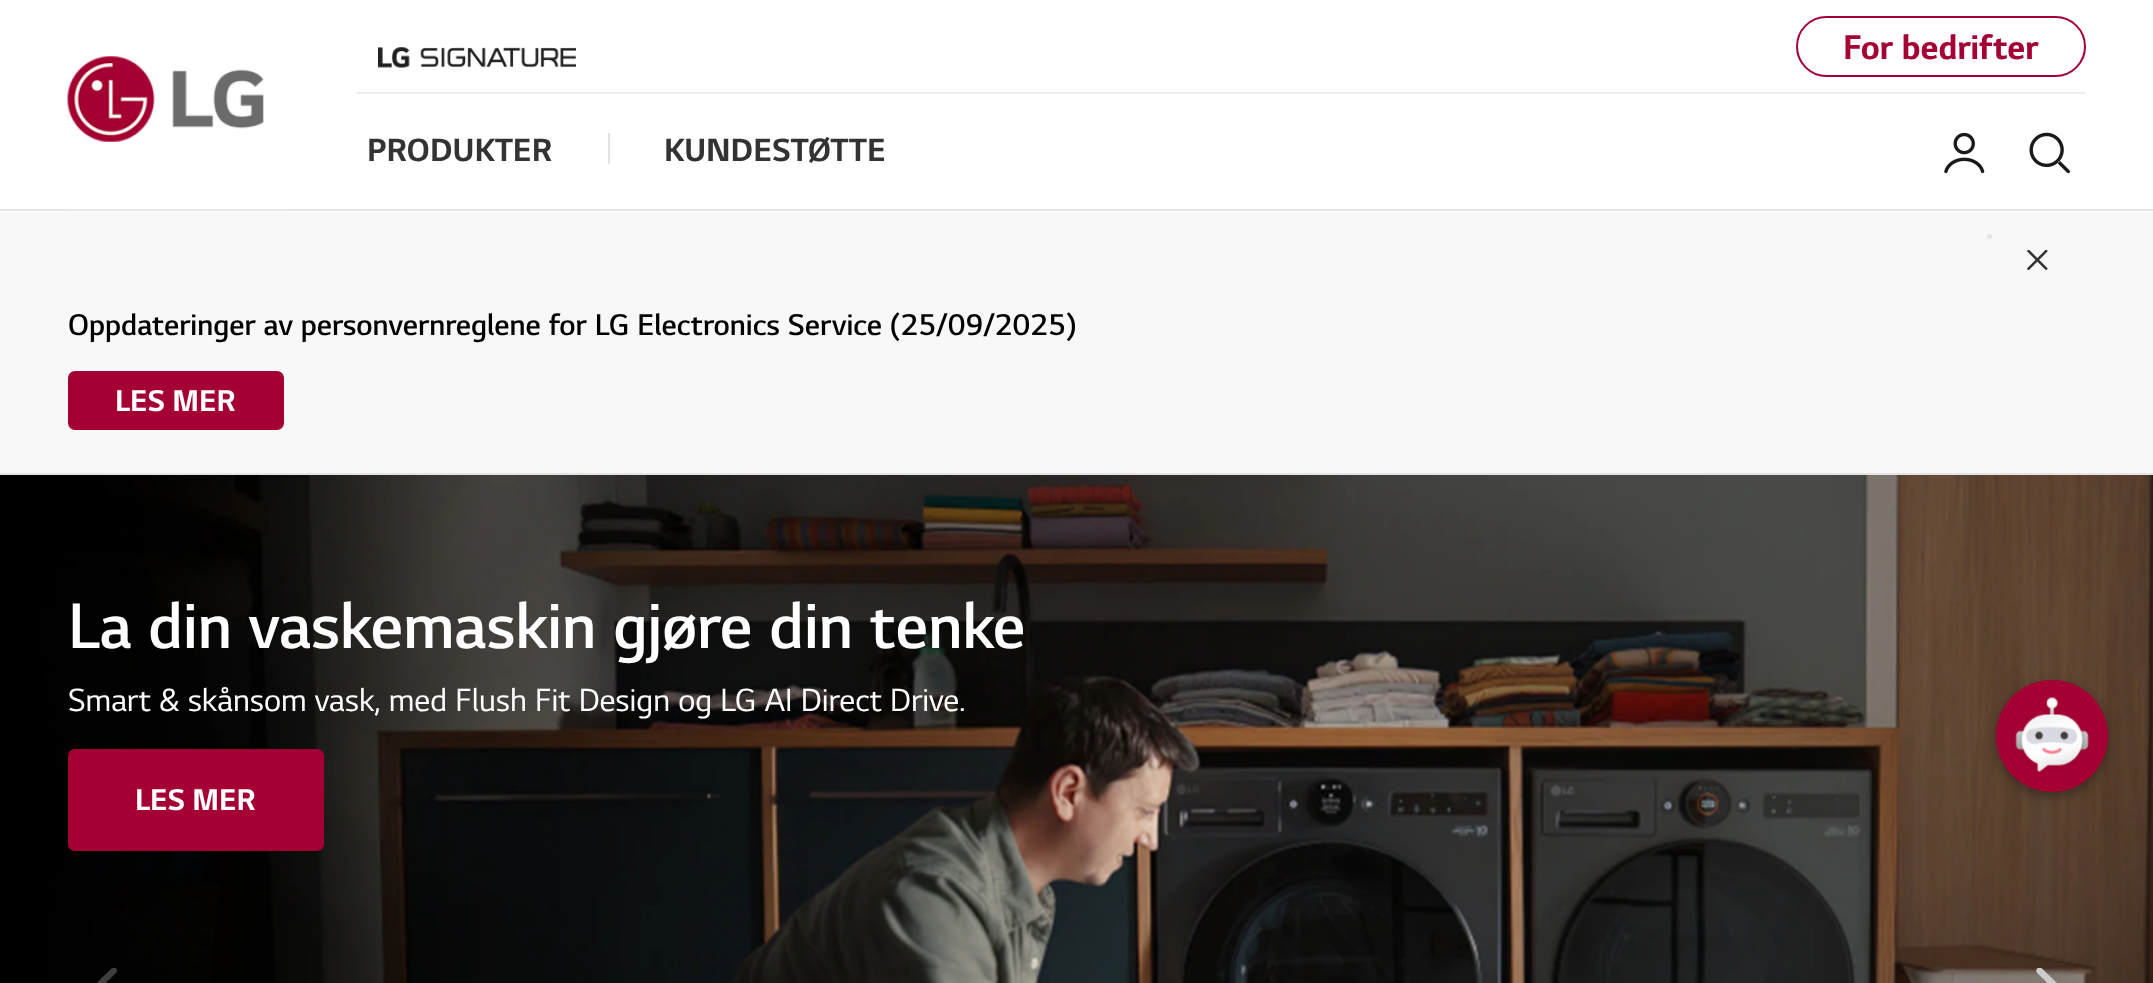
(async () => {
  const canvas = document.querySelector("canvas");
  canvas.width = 2153;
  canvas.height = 983;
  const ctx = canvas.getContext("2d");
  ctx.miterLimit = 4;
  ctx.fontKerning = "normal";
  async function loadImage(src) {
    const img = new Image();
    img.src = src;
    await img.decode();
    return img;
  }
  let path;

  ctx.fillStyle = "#ffffff";
  ctx.fillRect(0, 0, 2153, 983);
  ctx.fillStyle = "#e4e4e4";
  ctx.fillRect(0, 209, 2153, 2);
  ctx.drawImage(await loadImage("img/1.png"), 67, 56, 221, 154);
  ctx.fillStyle = "#eeeeee";
  ctx.fillRect(356, 92, 1730, 2);
  ctx.drawImage(await loadImage("img/2.png"), 378, 47, 198, 21);
  ctx.beginPath();
  ctx.roundRect(1797, 17, 288, 59, 29.5);
  ctx.strokeStyle = "#a50034";
  ctx.lineWidth = 2;
  ctx.stroke();
  ctx.fillStyle = "#e4e4e4";
  ctx.fillRect(608, 133, 2, 31);
  ctx.drawImage(await loadImage("img/3.png"), 1944, 132, 41, 42);
  ctx.drawImage(await loadImage("img/4.png"), 2029, 132, 41, 42);
  ctx.fillStyle = "#f8f8f8";
  ctx.fillRect(0, 212, 2153, 261);
  ctx.drawImage(await loadImage("img/5.png"), 2027, 250, 21, 20);
  ctx.fillStyle = "#e4e4e4";
  ctx.beginPath();
  ctx.arc(1989.5, 236.5, 2.5, 0, Math.PI * 2);
  ctx.fill();
  ctx.fillRect(0, 473, 2153, 2);
  ctx.fillStyle = "#a50034";
  ctx.beginPath();
  ctx.roundRect(69, 372, 214, 57, 6);
  ctx.fill();
  ctx.stroke();
  ctx.drawImage(await loadImage("img/6.png"), 0, 475, 2153, 508);
  ctx.beginPath();
  ctx.roundRect(69, 750, 254, 100, 6);
  ctx.fill();
  ctx.stroke();
  ctx.save();
  ctx.beginPath();
  ctx.rect(68, 968, 49, 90);
  ctx.clip();
  ctx.fillStyle = "#3e3e3e";
  path = new Path2D("M116 973L76 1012L109 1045C110 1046 122 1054 115 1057C114 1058 113 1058 112 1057L68 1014C65 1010 75 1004 76 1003L112 968C116 966 119 971 116 973Z");
  ctx.fill(path, "evenodd");
  ctx.restore();
  ctx.drawImage(await loadImage("img/7.png"), 2036, 968, 21, 15);
  ctx.fillStyle = "rgba(0, 0, 0, 0.3)";
  ctx.filter = "blur(5.5px)";
  ctx.beginPath();
  ctx.roundRect(1996, 684, 112, 113, 56);
  ctx.fill();
  ctx.filter = "none";
  ctx.fillStyle = "#a50034";
  ctx.beginPath();
  ctx.arc(2052, 736, 56, 0, Math.PI * 2);
  ctx.fill();
  ctx.drawImage(await loadImage("img/8.png"), 2015, 696, 74, 77);
  ctx.font = "bold 36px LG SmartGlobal";
  ctx.fillText("For bedrifter", 1843, 59);
  ctx.font = "bold 33.75px LG SmartGlobal";
  ctx.fillStyle = "#333333";
  ctx.fillText("PRODUKTER", 367, 161);
  ctx.fillText("KUNDESTØTTE", 664, 161);
  ctx.font = "600 31.5px LG SmartGlobal";
  ctx.fillStyle = "#000000";
  ctx.fillText("Oppdateringer av personvernreglene for LG Electronics Service (25/09/2025)", 68, 335);
  ctx.font = "bold 31.5px LG SmartGlobal";
  ctx.fillStyle = "#ffffff";
  ctx.fillText("LES MER", 115, 411);
  ctx.font = "600 67.5px LG SmartGlobal";
  ctx.fillText("La din vaskemaskin gjøre din tenke", 68, 648);
  ctx.font = "33.75px LG SmartGlobal";
  ctx.fillText("Smart & skånsom vask, med Flush Fit Design og LG AI Direct Drive.", 68, 711);
  ctx.font = "bold 31.5px LG SmartGlobal";
  ctx.fillText("LES MER", 135, 810);
})();
